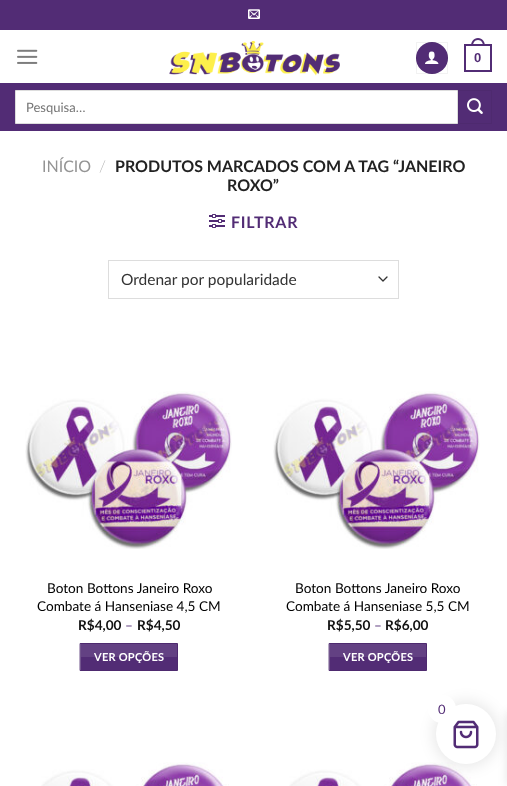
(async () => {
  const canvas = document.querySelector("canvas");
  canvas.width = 507;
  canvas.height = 786;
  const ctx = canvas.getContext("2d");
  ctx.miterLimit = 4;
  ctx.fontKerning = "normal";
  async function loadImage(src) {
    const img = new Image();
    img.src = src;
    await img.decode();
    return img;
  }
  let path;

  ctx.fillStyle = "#ffffff";
  ctx.fillRect(0, 0, 507, 786);
  ctx.fillStyle = "#522c75";
  ctx.fillRect(0, 0, 507, 30);
  ctx.drawImage(await loadImage("img/1.png"), 248, 9, 12, 10);
  ctx.drawImage(await loadImage("img/2.png"), 17, 49, 21, 15);
  ctx.drawImage(await loadImage("img/3.png"), 169, 40, 171, 36);
  ctx.beginPath();
  ctx.arc(432, 58, 16, 0, Math.PI * 2);
  ctx.fill();
  ctx.strokeStyle = "rgba(0, 0, 0, 0.05)";
  ctx.strokeRect(416.5, 42.5, 31, 31);
  ctx.drawImage(await loadImage("img/4.png"), 425, 51, 14, 13);
  ctx.strokeStyle = "#522c75";
  ctx.lineWidth = 2;
  ctx.strokeRect(465, 45, 26, 26);
  path = new Path2D("M478 38C482.5 38 485 42 485 46H471C471 42 473.5 38 478 38ZM478 40C481.5 40 483 43 483 46H473C473 43 474.5 40 478 40Z");
  ctx.fill(path, "evenodd");
  ctx.fillRect(0, 83, 507, 48);
  ctx.fillStyle = "#ffffff";
  ctx.beginPath();
  ctx.rect(15.5, 90.5, 442, 33);
  ctx.fill();
  ctx.strokeStyle = "#dddddd";
  ctx.lineWidth = 1;
  ctx.stroke();
  ctx.strokeStyle = "#4e2a6f";
  ctx.strokeRect(458.5, 90.5, 33, 33);
  ctx.drawImage(await loadImage("img/5.png"), 467, 98, 16, 16);
  ctx.drawImage(await loadImage("img/6.png"), 209, 214, 16, 14);
  path = new Path2D("M379 277L383 281L387 277");
  ctx.strokeStyle = "#333333";
  ctx.lineWidth = 1.3;
  ctx.lineCap = "round";
  ctx.lineJoin = "round";
  ctx.stroke(path);
  ctx.strokeStyle = "#dddddd";
  ctx.lineWidth = 1;
  ctx.lineJoin = "miter";
  ctx.strokeRect(108.5, 260.5, 290, 38);
  ctx.drawImage(await loadImage("img/7.png"), 25, 391, 207, 158);
  ctx.fillStyle = "#522c75";
  ctx.beginPath();
  ctx.rect(80.5, 643.5, 97, 27);
  ctx.fill();
  ctx.strokeStyle = "#4e2a6f";
  ctx.stroke();
  ctx.fillStyle = "rgba(255, 255, 255, 0.1)";
  ctx.fillRect(81, 644, 96, 13);
  ctx.drawImage(await loadImage("img/7.png"), 273, 391, 207, 158);
  ctx.fillStyle = "#522c75";
  ctx.beginPath();
  ctx.rect(329.5, 643.5, 97, 27);
  ctx.fill();
  ctx.stroke();
  ctx.fillStyle = "rgba(255, 255, 255, 0.1)";
  ctx.fillRect(330, 644, 96, 13);
  ctx.drawImage(await loadImage("img/8.png"), 41, 762, 188, 24);
  ctx.drawImage(await loadImage("img/8.png"), 289, 762, 188, 24);
  ctx.fillStyle = "rgba(0, 0, 0, 0.1)";
  ctx.filter = "blur(7.5px)";
  ctx.beginPath();
  ctx.roundRect(434, 702, 64, 64, 32);
  ctx.fill();
  ctx.filter = "none";
  ctx.filter = "blur(5px)";
  ctx.beginPath();
  ctx.rect(507, 712, 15, 73);
  ctx.fill();
  ctx.filter = "none";
  ctx.fillStyle = "#ffffff";
  ctx.beginPath();
  ctx.arc(466, 734, 30, 0, Math.PI * 2);
  ctx.fill();
  ctx.drawImage(await loadImage("img/9.png"), 453, 720, 26, 29);
  ctx.beginPath();
  ctx.arc(442, 709, 14, 0, Math.PI * 2);
  ctx.fill();
  ctx.font = "bold 13px Liberation Sans";
  ctx.fillStyle = "#522c75";
  ctx.fillText("0", 474, 62);
  ctx.font = "13px Lato";
  ctx.fillStyle = "#757575";
  ctx.fillText("Pesquisa…", 26, 112);
  ctx.font = "16px Lato";
  ctx.fillStyle = "#949494";
  ctx.fillText("INÍCIO", 42, 172);
  ctx.font = "300 16px Lato";
  ctx.fillStyle = "#b2b2b2";
  ctx.fillText("/", 99, 172);
  ctx.font = "bold 16px Lato";
  ctx.fillStyle = "#222222";
  ctx.fillText("PRODUTOS MARCADOS COM A TAG “JANEIRO", 115, 172);
  ctx.fillText("ROXO”", 227, 191);
  ctx.letterSpacing = "0.75px";
  ctx.fillStyle = "#522c75";
  ctx.fillText("FILTRAR", 231, 228);
  ctx.letterSpacing = "0px";
  ctx.font = "15.5px Lato";
  ctx.fillStyle = "#333333";
  ctx.fillText("Ordenar por popularidade", 121, 285);
  ctx.font = "13.6px Lato";
  ctx.fillStyle = "#000000";
  ctx.fillText("Boton Bottons Janeiro Roxo", 47, 593);
  ctx.fillText("Combate á Hanseniase 4,5 CM", 37, 611);
  ctx.font = "bold 13.6px Lato";
  ctx.fillStyle = "#111111";
  ctx.fillText("R$4,00", 78, 630);
  ctx.font = "13.6px Lato";
  ctx.fillStyle = "#522c75";
  ctx.fillText("–", 125, 630);
  ctx.font = "bold 13.6px Lato";
  ctx.fillStyle = "#111111";
  ctx.fillText("R$4,50", 137, 630);
  ctx.letterSpacing = "0.25px";
  ctx.font = "bold 11px Lato";
  ctx.fillStyle = "#ffffff";
  ctx.fillText("VER OPÇÕES", 94, 661);
  ctx.letterSpacing = "0px";
  ctx.font = "13.6px Lato";
  ctx.fillStyle = "#000000";
  ctx.fillText("Boton Bottons Janeiro Roxo", 295, 593);
  ctx.fillText("Combate á Hanseniase 5,5 CM", 286, 611);
  ctx.font = "bold 13.6px Lato";
  ctx.fillStyle = "#111111";
  ctx.fillText("R$5,50", 327, 630);
  ctx.font = "13.6px Lato";
  ctx.fillStyle = "#522c75";
  ctx.fillText("–", 374, 630);
  ctx.font = "bold 13.6px Lato";
  ctx.fillStyle = "#111111";
  ctx.fillText("R$6,00", 385, 630);
  ctx.letterSpacing = "0.25px";
  ctx.font = "bold 11px Lato";
  ctx.fillStyle = "#ffffff";
  ctx.fillText("VER OPÇÕES", 343, 661);
  ctx.letterSpacing = "0px";
  ctx.font = "13px Lato";
  ctx.fillStyle = "#522c75";
  ctx.fillText("0", 438, 714);
})();
